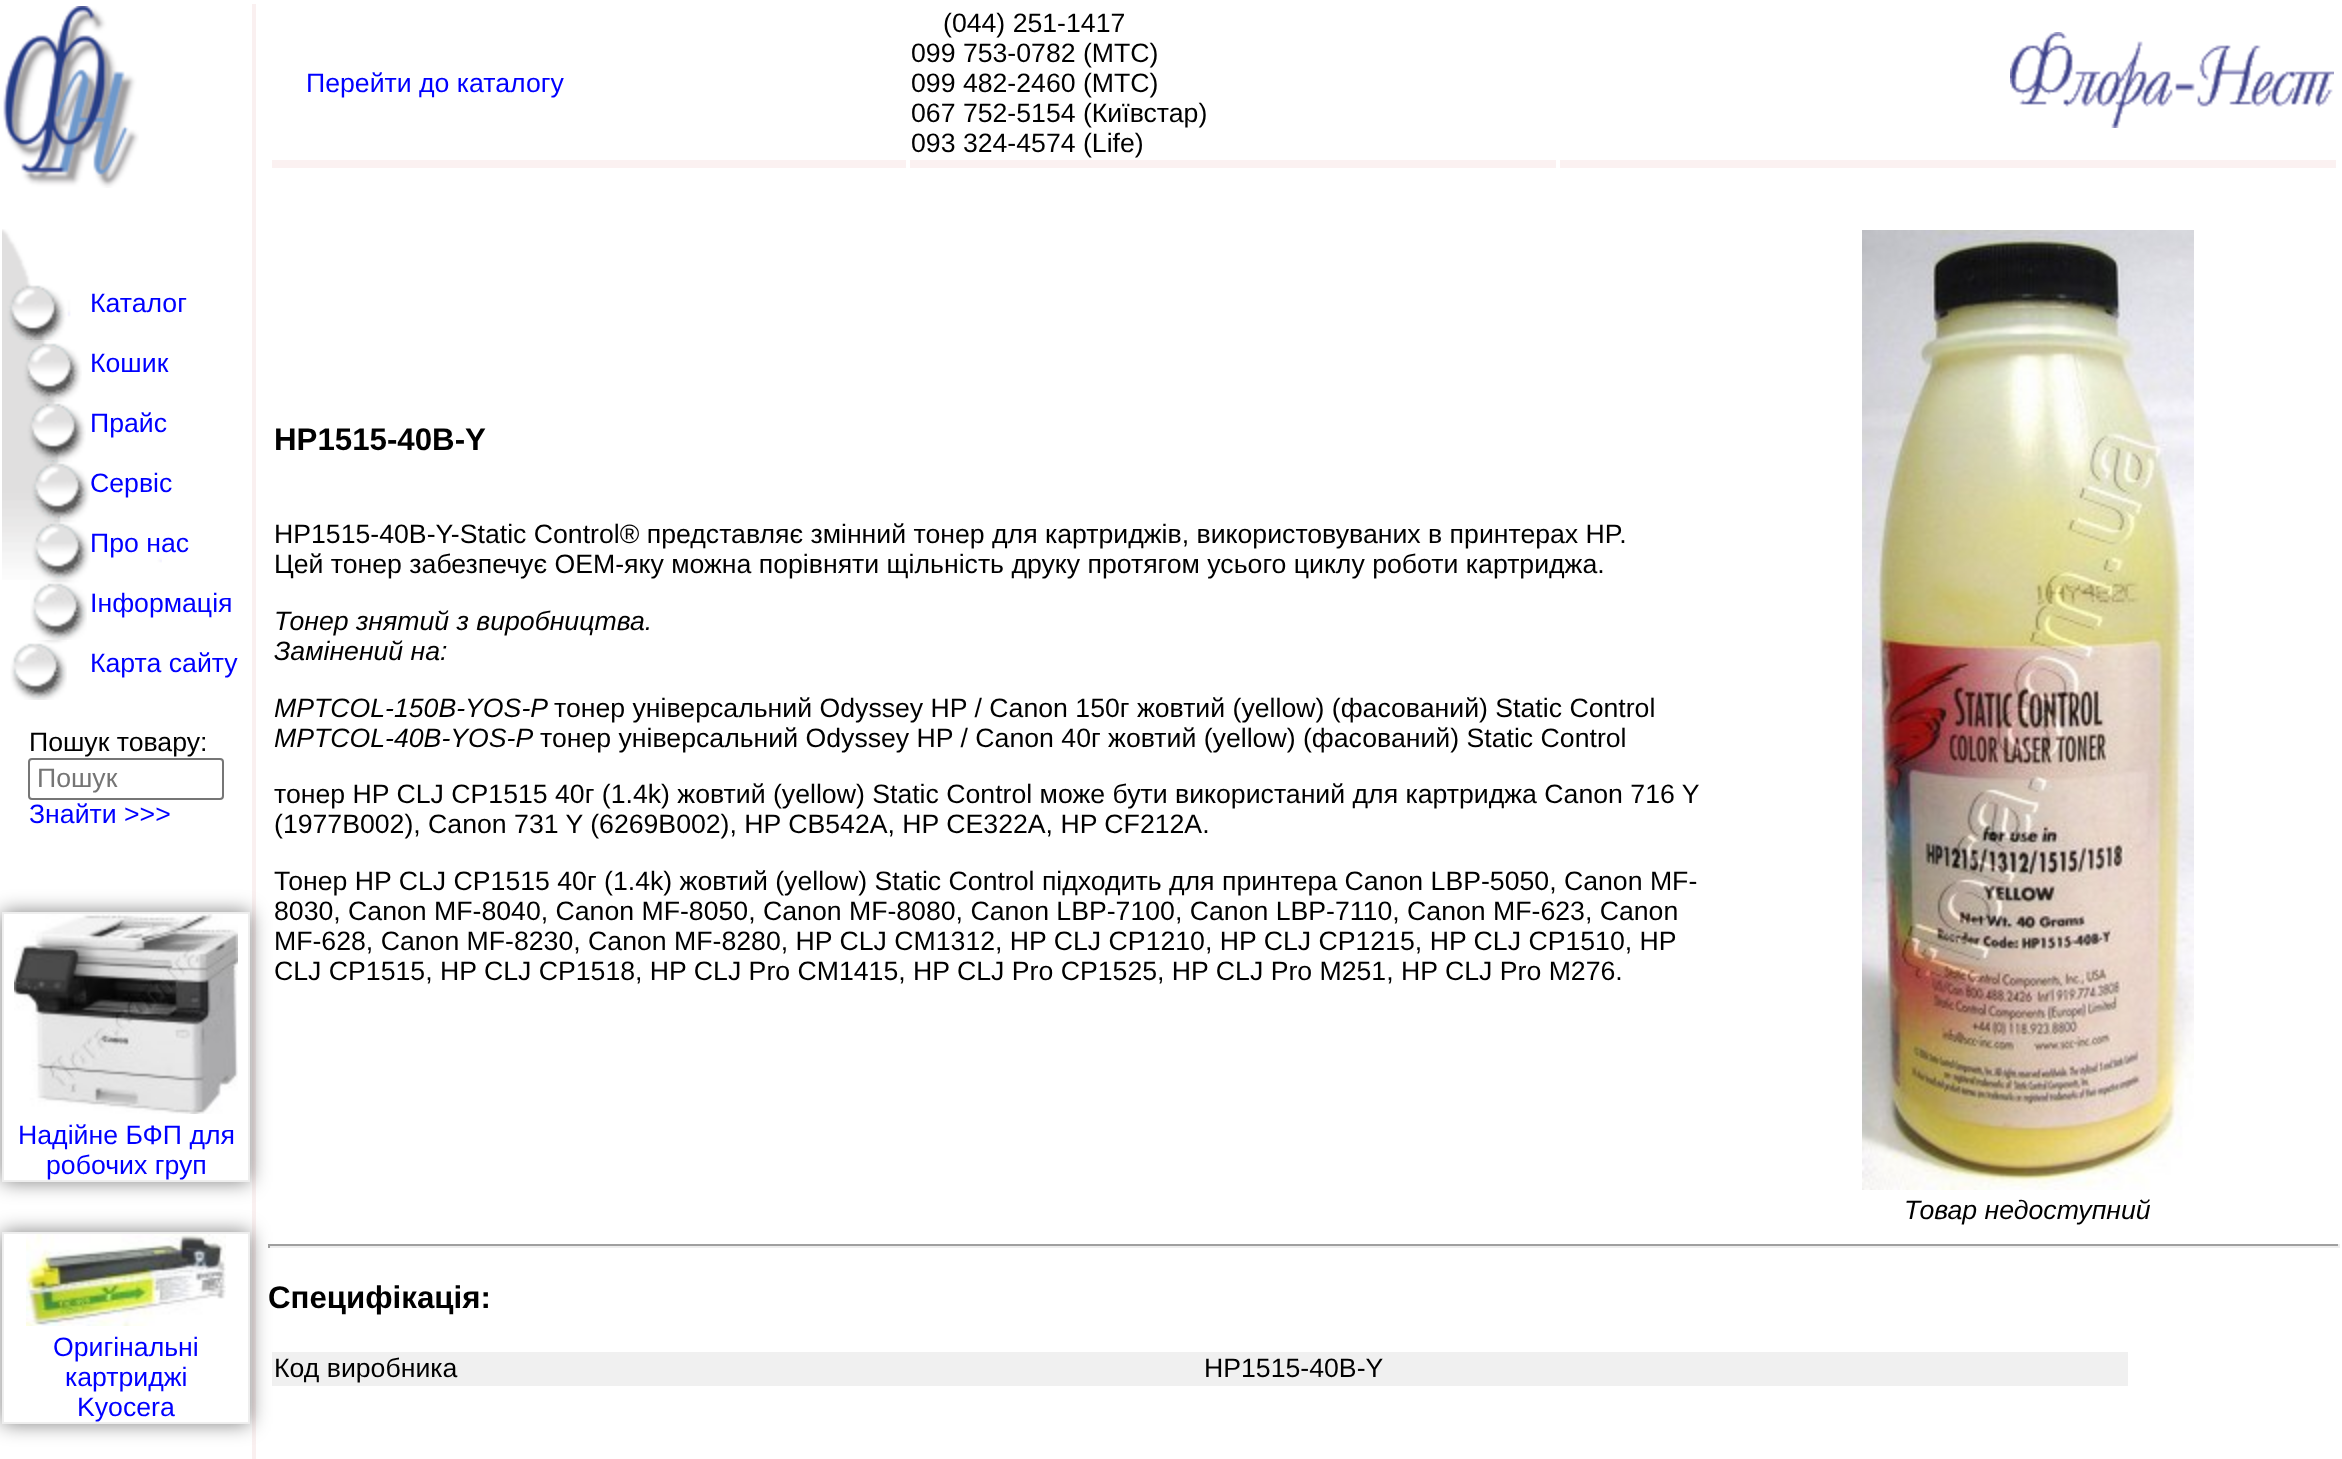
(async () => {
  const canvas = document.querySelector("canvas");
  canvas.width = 2342;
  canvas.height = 1459;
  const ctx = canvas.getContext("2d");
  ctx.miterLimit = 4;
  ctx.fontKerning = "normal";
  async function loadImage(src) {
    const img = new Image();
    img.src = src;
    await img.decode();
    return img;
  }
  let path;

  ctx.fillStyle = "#ffffff";
  ctx.fillRect(0, 0, 2342, 1459);
  ctx.fillStyle = "#faf0f0";
  ctx.fillRect(252, 4, 4, 1455);
  ctx.drawImage(await loadImage("img/1.png"), 3, 6, 136, 182);
  ctx.drawImage(await loadImage("img/2.png"), 2, 229, 28, 51);
  ctx.drawImage(await loadImage("img/3.png"), 2, 280, 92, 60);
  ctx.drawImage(await loadImage("img/4.png"), 2, 340, 80, 60);
  ctx.drawImage(await loadImage("img/5.png"), 2, 400, 84, 60);
  ctx.drawImage(await loadImage("img/6.png"), 2, 460, 88, 60);
  ctx.drawImage(await loadImage("img/7.png"), 2, 520, 160, 60);
  ctx.drawImage(await loadImage("img/8.png"), 30, 580, 57, 60);
  ctx.drawImage(await loadImage("img/9.png"), 10, 640, 57, 60);
  ctx.beginPath();
  ctx.roundRect(29, 759, 194, 40, 3);
  ctx.strokeStyle = "#767676";
  ctx.lineWidth = 2;
  ctx.stroke();
  ctx.save();
  path = new Path2D("M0 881H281V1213H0ZM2 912H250V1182H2Z");
  ctx.clip(path, "evenodd");
  ctx.fillStyle = "rgba(0, 0, 0, 0.5)";
  ctx.filter = "blur(10px)";
  ctx.beginPath();
  ctx.rect(2, 912, 248, 270);
  ctx.fill();
  ctx.filter = "none";
  ctx.restore();
  ctx.strokeStyle = "#eeeeee";
  ctx.strokeRect(3, 913, 246, 268);
  ctx.drawImage(await loadImage("img/10.png"), 14, 914, 224, 200);
  ctx.fillStyle = "#f0f0f0";
  ctx.fillRect(272, 1352, 1856, 34);
  ctx.save();
  path = new Path2D("M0 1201H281V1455H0ZM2 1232H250V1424H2Z");
  ctx.clip(path, "evenodd");
  ctx.fillStyle = "rgba(0, 0, 0, 0.5)";
  ctx.filter = "blur(10px)";
  ctx.beginPath();
  ctx.rect(2, 1232, 248, 192);
  ctx.fill();
  ctx.filter = "none";
  ctx.restore();
  ctx.strokeRect(3, 1233, 246, 190);
  ctx.drawImage(await loadImage("img/11.png"), 26, 1234, 200, 92);
  for (const [x, y, w, h, color] of [
    [272, 160, 634, 8, "#fbf1f1"],
    [910, 160, 646, 8, "#fbf1f1"],
    [1560, 160, 776, 8, "#fbf1f1"],
  ]) {
    ctx.fillStyle = color;
    ctx.fillRect(x, y, w, h);
  }
  ctx.drawImage(await loadImage("img/12.png"), 2010, 32, 324, 96);
  ctx.drawImage(await loadImage("img/13.png"), 1862, 230, 332, 960);
  for (const [x, y, w, h, color] of [
    [268, 1244, 2072, 2, "#9f9f9f"],
    [2338, 1244, 2, 4, "#eeeeee"],
    [268, 1246, 2072, 2, "#eeeeee"],
    [268, 1244, 2, 4, "#9f9f9f"],
  ]) {
    ctx.fillStyle = color;
    ctx.fillRect(x, y, w, h);
  }
  ctx.font = "26.67px Liberation Sans";
  ctx.fillStyle = "#0000ff";
  for (const [text, x, y] of [
    ["Каталог", 90, 312],
    ["Кошик", 90, 372],
    ["Прайс", 90, 432],
    ["Сервіс", 90, 492],
    ["Про нас", 90, 552],
    ["Інформація", 90, 612],
    ["Карта сайту", 90, 672],
  ]) {
    ctx.fillText(text, x, y);
  }
  ctx.fillStyle = "#000000";
  ctx.fillText("Пошук товару:", 29, 751);
  ctx.fillStyle = "#757575";
  ctx.fillText("Пошук", 37, 787);
  ctx.fillStyle = "#0000ff";
  for (const [text, x, y] of [
    ["Знайти >>>", 29, 823],
    ["Надійне БФП для", 18, 1144],
    ["робочих груп", 46, 1174],
    ["Оригінальні", 53, 1356],
    ["картриджі", 65, 1386],
    ["Kyocera", 77, 1416],
    ["Перейти до каталогу", 306, 92],
  ]) {
    ctx.fillText(text, x, y);
  }
  ctx.fillStyle = "#000000";
  for (const [text, x, y] of [
    ["(044) 251-1417", 943, 32],
    ["099 753-0782 (MTC)", 911, 62],
    ["099 482-2460 (MTC)", 911, 92],
    ["067 752-5154 (Київстар)", 911, 122],
    ["093 324-4574 (Life)", 911, 152],
  ]) {
    ctx.fillText(text, x, y);
  }
  ctx.font = "bold 31.25px Liberation Sans";
  ctx.fillText("HP1515-40B-Y", 274, 450);
  ctx.font = "26.67px Liberation Sans";
  ctx.fillText("HP1515-40B-Y-Static Control® представляє змінний тонер для картриджів, використовуваних в принтерах HP.", 274, 543);
  ctx.fillText("Цей тонер забезпечує ОЕМ-яку можна порівняти щільність друку протягом усього циклу роботи картриджа.", 274, 573);
  ctx.font = "italic 26.67px Liberation Sans";
  for (const [text, x, y] of [
    ["Тонер знятий з виробництва.", 274, 630],
    ["Замінений на:", 274, 660],
    ["MPTCOL-150B-YOS-P", 274, 717],
  ]) {
    ctx.fillText(text, x, y);
  }
  ctx.font = "26.67px Liberation Sans";
  ctx.fillText("тонер універсальний Odyssey HP / Canon 150г жовтий (yellow) (фасований) Static Control", 554, 717);
  ctx.font = "italic 26.67px Liberation Sans";
  ctx.fillText("MPTCOL-40B-YOS-P", 274, 747);
  ctx.font = "26.67px Liberation Sans";
  for (const [text, x, y] of [
    ["тонер універсальний Odyssey HP / Canon 40г жовтий (yellow) (фасований) Static Control", 540, 747],
    ["тонер HP CLJ CP1515 40г (1.4k) жовтий (yellow) Static Control може бути використаний для картриджа Canon 716 Y", 274, 803],
    ["(1977B002), Canon 731 Y (6269B002), HP CB542A, HP CE322A, HP CF212A.", 274, 833],
    ["Тонер HP CLJ CP1515 40г (1.4k) жовтий (yellow) Static Control підходить для принтера Canon LBP-5050, Canon MF-", 274, 890],
    ["8030, Canon MF-8040, Canon MF-8050, Canon MF-8080, Canon LBP-7100, Canon LBP-7110, Canon MF-623, Canon", 274, 920],
    ["MF-628, Canon MF-8230, Canon MF-8280, HP CLJ CM1312, HP CLJ CP1210, HP CLJ CP1215, HP CLJ CP1510, HP", 274, 950],
    ["CLJ CP1515, HP CLJ CP1518, HP CLJ Pro CM1415, HP CLJ Pro CP1525, HP CLJ Pro M251, HP CLJ Pro M276.", 274, 980],
  ]) {
    ctx.fillText(text, x, y);
  }
  ctx.font = "italic 26.67px Liberation Sans";
  ctx.fillText("Товар недоступний", 1904, 1219);
  ctx.font = "bold 31.25px Liberation Sans";
  ctx.fillText("Специфікація:", 268, 1308);
  ctx.font = "26.67px Liberation Sans";
  ctx.fillText("Код виробника", 274, 1377);
  ctx.fillText("HP1515-40B-Y", 1204, 1377);
})();
